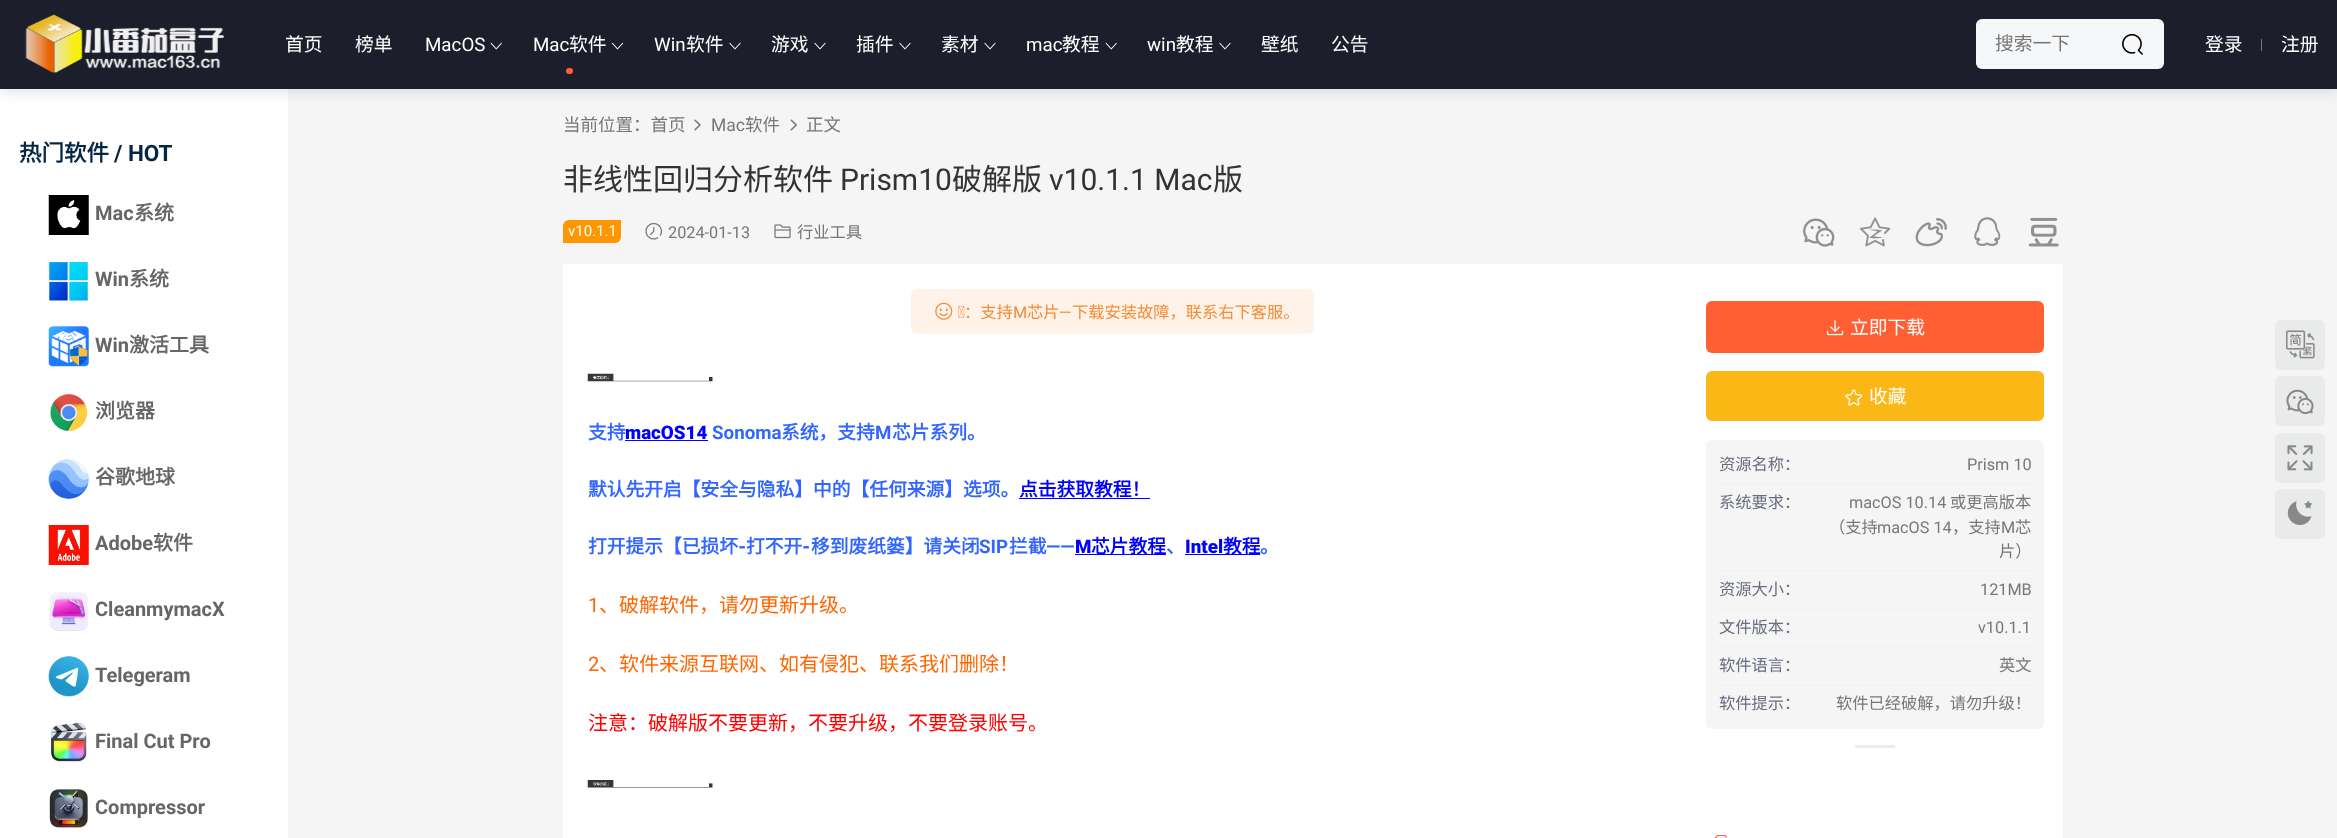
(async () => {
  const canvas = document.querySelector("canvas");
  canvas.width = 2337;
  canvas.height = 838;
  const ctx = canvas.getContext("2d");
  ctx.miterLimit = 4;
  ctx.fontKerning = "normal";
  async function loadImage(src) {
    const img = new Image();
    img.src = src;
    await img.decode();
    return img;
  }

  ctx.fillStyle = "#f5f5f5";
  ctx.fillRect(0, 0, 2337, 838);
  ctx.fillStyle = "#ffffff";
  ctx.fillRect(0, 89, 288, 749);
  ctx.fillStyle = "rgba(17, 58, 93, 0.1)";
  ctx.filter = "blur(6px)";
  ctx.beginPath();
  ctx.rect(0, 5, 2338, 89);
  ctx.fill();
  ctx.filter = "none";
  ctx.fillStyle = "#1c1f2b";
  ctx.fillRect(0, 0, 2337, 89);
  ctx.drawImage(await loadImage("img/1.png"), 25, 14, 199, 59);
  ctx.drawImage(await loadImage("img/2.png"), 490, 42, 12, 8);
  ctx.fillStyle = "#ff5f33";
  ctx.beginPath();
  ctx.roundRect(566, 68, 7, 6, 3);
  ctx.fill();
  ctx.drawImage(await loadImage("img/3.png"), 611, 42, 13, 8);
  ctx.drawImage(await loadImage("img/4.png"), 729, 42, 12, 8);
  ctx.drawImage(await loadImage("img/4.png"), 814, 42, 12, 8);
  ctx.drawImage(await loadImage("img/4.png"), 899, 42, 12, 8);
  ctx.drawImage(await loadImage("img/4.png"), 984, 42, 12, 8);
  ctx.drawImage(await loadImage("img/2.png"), 1105, 42, 12, 8);
  ctx.drawImage(await loadImage("img/4.png"), 1219, 42, 12, 8);
  ctx.fillStyle = "#f6f7f9";
  ctx.beginPath();
  ctx.roundRect(1976, 19, 188, 50, 6);
  ctx.fill();
  ctx.drawImage(await loadImage("img/5.png"), 2122, 34, 21, 21);
  ctx.fillStyle = "#777777";
  ctx.fillRect(2261, 39, 1, 12);
  ctx.drawImage(await loadImage("img/6.png"), 48, 195, 41, 40);
  ctx.drawImage(await loadImage("img/7.png"), 48, 262, 40, 39);
  ctx.drawImage(await loadImage("img/8.png"), 48, 326, 41, 41);
  ctx.drawImage(await loadImage("img/9.png"), 50, 394, 38, 38);
  ctx.drawImage(await loadImage("img/10.png"), 48, 459, 41, 40);
  ctx.drawImage(await loadImage("img/11.png"), 48, 525, 41, 40);
  ctx.drawImage(await loadImage("img/12.png"), 49, 591, 40, 40);
  ctx.drawImage(await loadImage("img/13.png"), 48, 656, 41, 41);
  ctx.drawImage(await loadImage("img/14.png"), 51, 723, 36, 39);
  ctx.drawImage(await loadImage("img/15.png"), 49, 789, 39, 39);
  ctx.drawImage(await loadImage("img/16.png"), 694, 119, 7, 12);
  ctx.drawImage(await loadImage("img/17.png"), 790, 119, 7, 12);
  ctx.fillStyle = "#ff9600";
  ctx.beginPath();
  ctx.roundRect(563, 220, 58, 23, [6, 0, 6, 0]);
  ctx.fill();
  ctx.drawImage(await loadImage("img/18.png"), 645, 222, 18, 18);
  ctx.drawImage(await loadImage("img/19.png"), 774, 224, 17, 15);
  ctx.drawImage(await loadImage("img/20.png"), 1803, 218, 32, 29);
  ctx.drawImage(await loadImage("img/21.png"), 1860, 217, 31, 30);
  ctx.drawImage(await loadImage("img/22.png"), 1915, 218, 32, 29);
  ctx.drawImage(await loadImage("img/23.png"), 1974, 217, 27, 29);
  ctx.drawImage(await loadImage("img/24.png"), 2028, 217, 31, 30);
  ctx.fillStyle = "#ffffff";
  ctx.fillRect(563, 264, 1500, 574);
  ctx.fillStyle = "#fff3e9";
  ctx.beginPath();
  ctx.roundRect(911, 289, 403, 45, 6);
  ctx.fill();
  ctx.drawImage(await loadImage("img/25.png"), 935, 302, 18, 18);
  ctx.drawImage(await loadImage("img/26.png"), 958, 305, 7, 13);
  ctx.drawImage(await loadImage("img/27.png"), 587, 373, 126, 9);
  for (const [x, y, w, h, color] of [
    [625, 440, 83, 1, "#0000ff"],
    [1019, 498, 131, 1, "#0000ff"],
    [1075, 554, 91, 1, "#0000ff"],
    [1185, 554, 75, 1, "#0000ff"],
  ]) {
    ctx.fillStyle = color;
    ctx.fillRect(x, y, w, h);
  }
  ctx.drawImage(await loadImage("img/28.png"), 587, 780, 126, 8);
  ctx.fillStyle = "#ff5f33";
  ctx.beginPath();
  ctx.roundRect(1706, 301, 338, 52, 6);
  ctx.fill();
  ctx.drawImage(await loadImage("img/29.png"), 1826, 320, 18, 16);
  ctx.fillStyle = "#fbb715";
  ctx.beginPath();
  ctx.roundRect(1706, 371, 338, 50, 6);
  ctx.fill();
  ctx.drawImage(await loadImage("img/30.png"), 1845, 389, 18, 17);
  ctx.fillStyle = "#f5f5f5";
  ctx.beginPath();
  ctx.roundRect(1706, 440, 338, 289, 6);
  ctx.fill();
  for (const [x, y, w, h, color] of [
    [1719, 484, 312, 1, "#efefef"],
    [1719, 570, 312, 1, "#efefef"],
    [1719, 609, 312, 1, "#efefef"],
    [1719, 646, 312, 1, "#efefef"],
    [1719, 685, 312, 1, "#efefef"],
    [1855, 745, 40, 3, "#ebebeb"],
  ]) {
    ctx.fillStyle = color;
    ctx.fillRect(x, y, w, h);
  }
  ctx.drawImage(await loadImage("img/31.png"), 1714, 835, 13, 3);
  ctx.fillStyle = "#e9eaea";
  ctx.beginPath();
  ctx.roundRect(2275, 320, 50, 50, 6);
  ctx.fill();
  ctx.drawImage(await loadImage("img/32.png"), 2286, 330, 29, 29);
  ctx.beginPath();
  ctx.roundRect(2275, 376, 50, 50, 6);
  ctx.fill();
  ctx.drawImage(await loadImage("img/33.png"), 2286, 389, 28, 26);
  ctx.beginPath();
  ctx.roundRect(2275, 433, 50, 50, 6);
  ctx.fill();
  ctx.drawImage(await loadImage("img/34.png"), 2287, 445, 26, 26);
  ctx.beginPath();
  ctx.roundRect(2275, 489, 50, 50, 6);
  ctx.fill();
  ctx.drawImage(await loadImage("img/35.png"), 2287, 500, 25, 25);
  ctx.font = "18.75px Noto Sans CJK SC";
  ctx.fillStyle = "#ffffff";
  ctx.fillText("首页", 285, 51);
  ctx.fillText("榜单", 355, 51);
  ctx.font = "18.75px Roboto";
  ctx.fillText("MacOS", 425, 51);
  ctx.fillText("Mac", 533, 51);
  ctx.font = "18.75px Noto Sans CJK SC";
  ctx.fillText("软件", 569, 51);
  ctx.font = "18.75px Roboto";
  ctx.fillText("Win", 654, 51);
  ctx.font = "18.75px Noto Sans CJK SC";
  for (const [text, x, y] of [
    ["软件", 686, 51],
    ["游戏", 771, 51],
    ["插件", 856, 51],
    ["素材", 941, 51],
  ]) {
    ctx.fillText(text, x, y);
  }
  ctx.font = "18.75px Roboto";
  ctx.fillText("mac", 1026, 51);
  ctx.font = "18.75px Noto Sans CJK SC";
  ctx.fillText("教程", 1062, 51);
  ctx.font = "18.75px Roboto";
  ctx.fillText("win", 1147, 51);
  ctx.font = "18.75px Noto Sans CJK SC";
  for (const [text, x, y] of [
    ["教程", 1176, 51],
    ["壁纸", 1261, 51],
    ["公告", 1331, 51],
  ]) {
    ctx.fillText(text, x, y);
  }
  ctx.fillStyle = "#777777";
  ctx.fillText("搜索一下", 1995, 50);
  ctx.fillStyle = "#ffffff";
  ctx.fillText("登录", 2205, 51);
  ctx.fillText("注册", 2281, 51);
  ctx.font = "bold 22.5px Noto Sans CJK SC";
  ctx.fillStyle = "#062743";
  ctx.fillText("热门软件", 19, 161);
  ctx.font = "bold 22.5px Roboto";
  ctx.fillText("/ HOT", 114, 161);
  ctx.font = "bold 20px Roboto";
  ctx.fillStyle = "#666666";
  ctx.fillText("Mac", 95, 220);
  ctx.font = "bold 20px Noto Sans CJK SC";
  ctx.fillText("系统", 134, 220);
  ctx.font = "bold 20px Roboto";
  ctx.fillText("Win", 95, 286);
  ctx.font = "bold 20px Noto Sans CJK SC";
  ctx.fillText("系统", 129, 286);
  ctx.font = "bold 20px Roboto";
  ctx.fillText("Win", 95, 352);
  ctx.font = "bold 20px Noto Sans CJK SC";
  for (const [text, x, y] of [
    ["激活工具", 129, 352],
    ["浏览器", 95, 418],
    ["谷歌地球", 95, 484],
  ]) {
    ctx.fillText(text, x, y);
  }
  ctx.font = "bold 20px Roboto";
  ctx.fillText("Adobe", 95, 550);
  ctx.font = "bold 20px Noto Sans CJK SC";
  ctx.fillText("软件", 153, 550);
  ctx.font = "bold 20px Roboto";
  for (const [text, x, y] of [
    ["CleanmymacX", 95, 616],
    ["Telegeram", 95, 682],
    ["Final Cut Pro", 95, 748],
    ["Compressor", 95, 814],
  ]) {
    ctx.fillText(text, x, y);
  }
  ctx.font = "17.5px Noto Sans CJK SC";
  ctx.fillStyle = "#777777";
  ctx.fillText("当前位置：首页", 563, 131);
  ctx.font = "17.5px Roboto";
  ctx.fillText("Mac", 711, 131);
  ctx.font = "17.5px Noto Sans CJK SC";
  ctx.fillText("软件", 745, 131);
  ctx.fillText("正文", 806, 131);
  ctx.font = "30px Noto Sans CJK SC";
  ctx.fillStyle = "#333333";
  ctx.fillText("非线性回归分析软件", 563, 190);
  ctx.font = "30px Roboto";
  ctx.fillText("Prism10", 840, 190);
  ctx.font = "30px Noto Sans CJK SC";
  ctx.fillText("破解版", 952, 190);
  ctx.font = "30px Roboto";
  ctx.fillText("v10.1.1 Mac", 1049, 190);
  ctx.font = "30px Noto Sans CJK SC";
  ctx.fillText("版", 1213, 190);
  ctx.font = "15px Roboto";
  ctx.fillStyle = "#ffffff";
  ctx.fillText("v10.1.1", 568, 236);
  ctx.font = "16.25px Roboto";
  ctx.fillStyle = "#777777";
  ctx.fillText("2024-01-13", 668, 238);
  ctx.font = "16.25px Noto Sans CJK SC";
  ctx.fillText("行业工具", 797, 238);
  ctx.fillStyle = "#f58b36";
  ctx.fillText("：支持", 964, 318);
  ctx.font = "16.25px Roboto";
  ctx.fillText("M", 1013, 318);
  ctx.font = "16.25px Noto Sans CJK SC";
  ctx.fillText("芯片", 1027, 318);
  ctx.font = "16.25px Roboto";
  ctx.fillText("—", 1059, 318);
  ctx.font = "16.25px Noto Sans CJK SC";
  ctx.fillText("下载安装故障，联系右下客服。", 1072, 318);
  ctx.font = "bold 18.75px Noto Sans CJK SC";
  ctx.fillStyle = "#3366ff";
  ctx.fillText("支持", 588, 439);
  ctx.font = "900 18.75px Roboto";
  ctx.fillStyle = "#0000ff";
  ctx.fillText("macOS14", 625, 439);
  ctx.font = "bold 18.75px Roboto";
  ctx.fillStyle = "#3366ff";
  ctx.fillText("Sonoma", 712, 439);
  ctx.font = "bold 18.75px Noto Sans CJK SC";
  ctx.fillText("系统，支持", 781, 439);
  ctx.font = "bold 18.75px Roboto";
  ctx.fillText("M", 875, 439);
  ctx.font = "bold 18.75px Noto Sans CJK SC";
  ctx.fillText("芯片系列。", 892, 439);
  ctx.fillText("默认先开启【安全与隐私】中的【任何来源】选项。", 588, 496);
  ctx.fillStyle = "#0000ff";
  ctx.fillText("点击获取教程！", 1019, 496);
  ctx.fillStyle = "#3366ff";
  ctx.fillText("打开提示【已损坏", 588, 553);
  ctx.font = "900 18.75px Roboto";
  ctx.fillText("-", 738, 553);
  ctx.font = "bold 18.75px Noto Sans CJK SC";
  ctx.fillText("打不开", 746, 553);
  ctx.font = "900 18.75px Roboto";
  ctx.fillText("-", 802, 553);
  ctx.font = "bold 18.75px Noto Sans CJK SC";
  ctx.fillText("移到废纸篓】请关闭", 811, 553);
  ctx.font = "bold 18.75px Roboto";
  ctx.fillText("SIP", 979, 553);
  ctx.font = "bold 18.75px Noto Sans CJK SC";
  ctx.fillText("拦截", 1009, 553);
  ctx.font = "bold 18.75px Roboto";
  ctx.fillText("——", 1046, 553);
  ctx.font = "900 18.75px Roboto";
  ctx.fillStyle = "#0000ff";
  ctx.fillText("M", 1075, 553);
  ctx.font = "bold 18.75px Noto Sans CJK SC";
  ctx.fillText("芯片教程", 1091, 553);
  ctx.font = "900 18.75px Roboto";
  ctx.fillText("Intel", 1185, 553);
  ctx.font = "bold 18.75px Noto Sans CJK SC";
  ctx.fillText("教程", 1223, 553);
  ctx.fillStyle = "#3366ff";
  ctx.fillText("、", 1166, 553);
  ctx.fillText("。", 1260, 553);
  ctx.font = "20px Roboto";
  ctx.fillStyle = "#ff6600";
  ctx.fillText("1", 588, 612);
  ctx.font = "20px Noto Sans CJK SC";
  ctx.fillText("、破解软件，请勿更新升级。", 599, 612);
  ctx.font = "20px Roboto";
  ctx.fillText("2", 588, 671);
  ctx.font = "20px Noto Sans CJK SC";
  ctx.fillText("、软件来源互联网、如有侵犯、联系我们删除！", 599, 671);
  ctx.fillStyle = "#ff0000";
  ctx.fillText("注意：破解版不要更新，不要升级，不要登录账号。", 588, 730);
  ctx.font = "18.75px Noto Sans CJK SC";
  ctx.fillStyle = "#ffffff";
  ctx.fillText("立即下载", 1850, 334);
  ctx.fillText("收藏", 1869, 403);
  ctx.font = "16.25px Noto Sans CJK SC";
  ctx.fillStyle = "#686e7f";
  ctx.fillText("资源名称：", 1719, 470);
  ctx.font = "16.25px Roboto";
  ctx.fillStyle = "#777777";
  ctx.fillText("Prism 10", 1967, 470);
  ctx.font = "16.25px Noto Sans CJK SC";
  ctx.fillStyle = "#686e7f";
  ctx.fillText("系统要求：", 1719, 508);
  ctx.font = "16.25px Roboto";
  ctx.fillStyle = "#777777";
  ctx.fillText("macOS 10.14", 1849, 508);
  ctx.font = "16.25px Noto Sans CJK SC";
  ctx.fillText("或更高版本", 1950, 508);
  ctx.fillText("（支持", 1829, 533);
  ctx.font = "16.25px Roboto";
  ctx.fillText("macOS 14", 1877, 533);
  ctx.font = "16.25px Noto Sans CJK SC";
  ctx.fillText("，支持", 1952, 533);
  ctx.font = "16.25px Roboto";
  ctx.fillText("M", 2001, 533);
  ctx.font = "16.25px Noto Sans CJK SC";
  ctx.fillText("芯", 2015, 533);
  ctx.fillText("片）", 1999, 557);
  ctx.fillStyle = "#686e7f";
  ctx.fillText("资源大小：", 1719, 595);
  ctx.font = "16.25px Roboto";
  ctx.fillStyle = "#777777";
  ctx.fillText("121MB", 1980, 595);
  ctx.font = "16.25px Noto Sans CJK SC";
  ctx.fillStyle = "#686e7f";
  ctx.fillText("文件版本：", 1719, 633);
  ctx.font = "16.25px Roboto";
  ctx.fillStyle = "#777777";
  ctx.fillText("v10.1.1", 1978, 633);
  ctx.font = "16.25px Noto Sans CJK SC";
  ctx.fillStyle = "#686e7f";
  ctx.fillText("软件语言：", 1719, 671);
  ctx.fillStyle = "#777777";
  ctx.fillText("英文", 1999, 671);
  ctx.fillStyle = "#686e7f";
  ctx.fillText("软件提示：", 1719, 709);
  ctx.fillStyle = "#777777";
  ctx.fillText("软件已经破解，请勿升级！", 1836, 709);
})();
